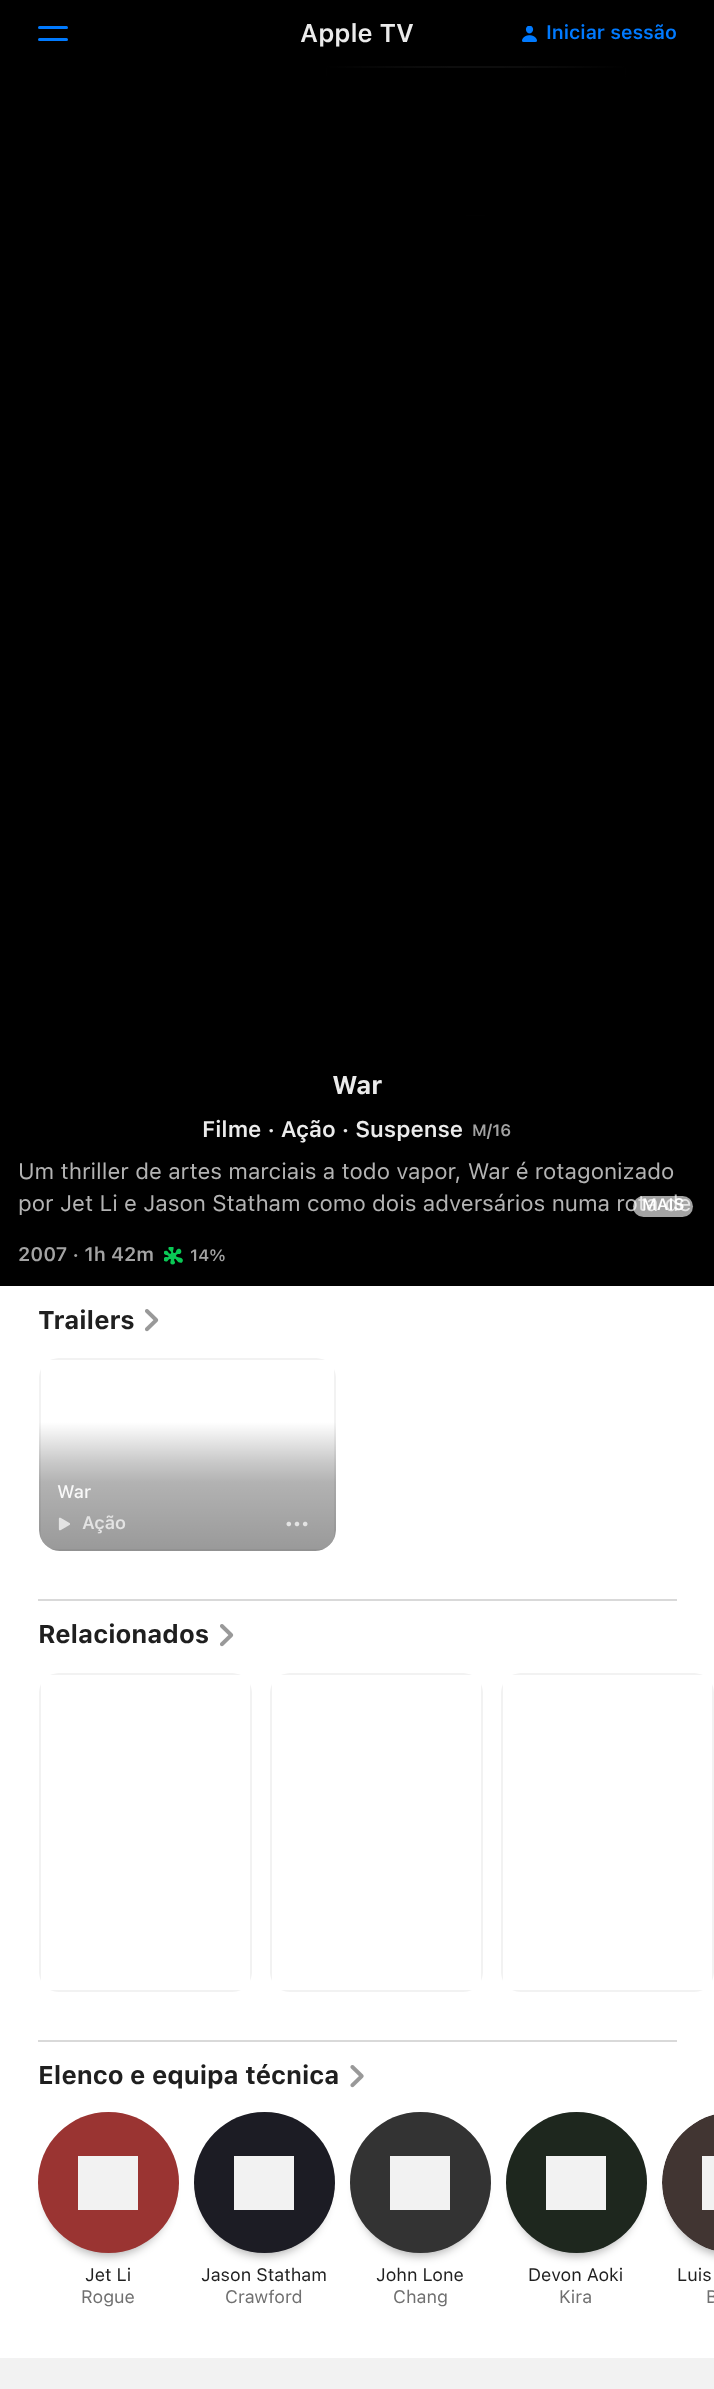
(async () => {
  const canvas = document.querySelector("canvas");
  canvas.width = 714;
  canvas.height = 2389;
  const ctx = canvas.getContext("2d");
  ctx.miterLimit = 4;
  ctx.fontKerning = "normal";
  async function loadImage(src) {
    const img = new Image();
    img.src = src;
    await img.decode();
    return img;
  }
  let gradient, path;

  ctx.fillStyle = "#ffffff";
  ctx.fillRect(0, 0, 714, 2389);
  ctx.fillStyle = "#000000";
  ctx.fillRect(0, 0, 714, 66);
  ctx.fillStyle = "#007aff";
  ctx.beginPath();
  ctx.roundRect(38, 26, 30, 3, 1.5);
  ctx.fill();
  ctx.beginPath();
  ctx.roundRect(38, 38, 30, 3, 1.5);
  ctx.fill();
  ctx.drawImage(await loadImage("img/1.png"), 522, 26, 15, 16);
  ctx.fillStyle = "#000000";
  ctx.fillRect(327, 68, 298, 147);
  ctx.save();
  ctx.beginPath();
  ctx.rect(0, 66, 714, 1220);
  ctx.clip();
  ctx.strokeStyle = "#0d0d0d";
  ctx.lineWidth = 2;
  ctx.strokeRect(1, 67, 712, 1267);
  ctx.restore();
  gradient = ctx.createRadialGradient(476, 66, 0, 476, 66, 150);
  gradient.addColorStop(0, "rgba(0, 0, 0, 0)");
  gradient.addColorStop(0.19, "rgba(0, 0, 0, 0.04)");
  gradient.addColorStop(0.36, "rgba(0, 0, 0, 0.15)");
  gradient.addColorStop(0.51, "rgba(0, 0, 0, 0.3)");
  gradient.addColorStop(0.53, "rgba(0, 0, 0, 0.33)");
  gradient.addColorStop(0.65, "rgba(0, 0, 0, 0.49)");
  gradient.addColorStop(0.77, "rgba(0, 0, 0, 0.67)");
  gradient.addColorStop(0.89, "rgba(0, 0, 0, 0.85)");
  gradient.addColorStop(1, "#000000");
  ctx.fillStyle = gradient;
  ctx.fillRect(0, 66, 714, 1220);
  ctx.drawImage(await loadImage("img/2.png"), 164, 1247, 19, 18);
  ctx.drawImage(await loadImage("img/3.png"), 145, 1309, 14, 23);
  ctx.fillStyle = "#f2f2f2";
  path = new Path2D("M39 1378V1531C39 1534 40 1537 41 1540V1369C40 1372 39 1375 39 1378ZM59 1358C56 1358 53 1359 50 1360H325C322 1359 319 1358 316 1358ZM336 1378C336 1375 335 1372 334 1369V1540C335 1537 336 1534 336 1531ZM316 1551C319 1551 322 1550 325 1549H50C53 1550 56 1551 59 1551Z");
  ctx.fill(path, "evenodd");
  ctx.save();
  ctx.beginPath();
  ctx.roundRect(39, 1358, 297, 193, 20);
  ctx.clip();
  gradient = ctx.createLinearGradient(188, 1422, 188, 1551);
  gradient.addColorStop(0, "rgba(0, 0, 0, 0)");
  gradient.addColorStop(0.19, "rgba(0, 0, 0, 0.13)");
  gradient.addColorStop(0.31, "rgba(0, 0, 0, 0.21)");
  gradient.addColorStop(0.47, "rgba(0, 0, 0, 0.3)");
  gradient.addColorStop(1, "rgba(0, 0, 0, 0.4)");
  ctx.fillStyle = gradient;
  ctx.beginPath();
  ctx.roundRect(39, 1422, 297, 129, [0, 0, 21, 21]);
  ctx.fill();
  ctx.restore();
  ctx.drawImage(await loadImage("img/4.png"), 58, 1517, 12, 14);
  ctx.drawImage(await loadImage("img/5.png"), 286, 1521, 22, 6);
  ctx.fillStyle = "#d9d9d9";
  ctx.fillRect(38, 1599, 639, 2);
  ctx.drawImage(await loadImage("img/3.png"), 220, 1624, 14, 23);
  ctx.fillStyle = "#f2f2f2";
  path = new Path2D("M39 1693V1972C39 1975 40 1978 41 1981V1684C40 1687 39 1690 39 1693ZM59 1673C56 1673 53 1674 50 1675H241C238 1674 235 1673 232 1673ZM252 1693C252 1690 251 1687 250 1684V1981C251 1978 252 1975 252 1972ZM232 1992C235 1992 238 1991 241 1990H50C53 1991 56 1992 59 1992Z");
  ctx.fill(path, "evenodd");
  path = new Path2D("M270 1693V1972C270 1975 271 1978 272 1981V1684C271 1687 270 1690 270 1693ZM290 1673C287 1673 284 1674 281 1675H472C469 1674 466 1673 463 1673ZM483 1693C483 1690 482 1687 481 1684V1981C482 1978 483 1975 483 1972ZM463 1992C466 1992 469 1991 472 1990H281C284 1991 287 1992 290 1992Z");
  ctx.fill(path, "evenodd");
  path = new Path2D("M501 1693V1972C501 1975 502 1978 503 1981V1684C502 1687 501 1690 501 1693ZM521 1673C518 1673 515 1674 512 1675H703C700 1674 697 1673 694 1673ZM714 1693C714 1690 713 1687 712 1684V1981C713 1978 714 1975 714 1972ZM694 1992C697 1992 700 1991 703 1990H512C515 1991 518 1992 521 1992Z");
  ctx.fill(path, "evenodd");
  ctx.fillStyle = "#d9d9d9";
  ctx.fillRect(38, 2040, 639, 2);
  ctx.drawImage(await loadImage("img/6.png"), 350, 2065, 14, 23);
  ctx.fillStyle = "rgba(0, 0, 0, 0.3)";
  ctx.filter = "blur(5px)";
  ctx.beginPath();
  ctx.roundRect(45, 2130, 126, 126, 63);
  ctx.fill();
  ctx.filter = "none";
  ctx.fillStyle = "#9d2c2a";
  ctx.beginPath();
  ctx.arc(108.5, 2182.5, 70.5, 0, Math.PI * 2);
  ctx.fill();
  ctx.fillStyle = "#ffffff";
  ctx.fillRect(78, 2156, 60, 54);
  ctx.fillStyle = "rgba(128, 128, 128, 0.1)";
  path = new Path2D("M108 2112C147 2112 179 2144 179 2182C179 2221 147 2253 108 2253C70 2253 38 2221 38 2182C38 2144 70 2112 108 2112Z");
  ctx.fill(path);
  ctx.fillStyle = "rgba(0, 0, 0, 0.3)";
  ctx.filter = "blur(5px)";
  ctx.beginPath();
  ctx.roundRect(201, 2130, 126, 126, 63);
  ctx.fill();
  ctx.filter = "none";
  ctx.fillStyle = "#11111a";
  ctx.beginPath();
  ctx.arc(264.5, 2182.5, 70.5, 0, Math.PI * 2);
  ctx.fill();
  ctx.fillStyle = "#ffffff";
  ctx.fillRect(234, 2156, 60, 54);
  ctx.fillStyle = "rgba(128, 128, 128, 0.1)";
  path = new Path2D("M264 2112C303 2112 335 2144 335 2182C335 2221 303 2253 264 2253C226 2253 194 2221 194 2182C194 2144 226 2112 264 2112Z");
  ctx.fill(path);
  ctx.fillStyle = "rgba(0, 0, 0, 0.3)";
  ctx.filter = "blur(5px)";
  ctx.beginPath();
  ctx.roundRect(357, 2130, 126, 126, 63);
  ctx.fill();
  ctx.filter = "none";
  ctx.fillStyle = "#2b2b2b";
  ctx.beginPath();
  ctx.arc(420.5, 2182.5, 70.5, 0, Math.PI * 2);
  ctx.fill();
  ctx.fillStyle = "#ffffff";
  ctx.fillRect(390, 2156, 60, 54);
  ctx.fillStyle = "rgba(128, 128, 128, 0.1)";
  path = new Path2D("M420 2112C459 2112 491 2144 491 2182C491 2221 459 2253 420 2253C382 2253 350 2221 350 2182C350 2144 382 2112 420 2112Z");
  ctx.fill(path);
  ctx.fillStyle = "rgba(0, 0, 0, 0.3)";
  ctx.filter = "blur(5px)";
  ctx.beginPath();
  ctx.roundRect(513, 2130, 126, 126, 63);
  ctx.fill();
  ctx.filter = "none";
  ctx.fillStyle = "#131d14";
  ctx.beginPath();
  ctx.arc(576.5, 2182.5, 70.5, 0, Math.PI * 2);
  ctx.fill();
  ctx.fillStyle = "#ffffff";
  ctx.fillRect(546, 2156, 60, 54);
  ctx.fillStyle = "rgba(128, 128, 128, 0.1)";
  path = new Path2D("M576 2112C615 2112 647 2144 647 2182C647 2221 615 2253 576 2253C538 2253 506 2221 506 2182C506 2144 538 2112 576 2112Z");
  ctx.fill(path);
  ctx.fillStyle = "rgba(0, 0, 0, 0.3)";
  ctx.filter = "blur(5px)";
  ctx.beginPath();
  ctx.roundRect(669, 2130, 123, 126, 63);
  ctx.fill();
  ctx.filter = "none";
  ctx.save();
  ctx.beginPath();
  ctx.roundRect(662, 2112, 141, 141, 70.5);
  ctx.clip();
  ctx.beginPath();
  ctx.roundRect(662, 2112, 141, 141, 70.5);
  ctx.clip();
  ctx.fillStyle = "#3a2d2a";
  ctx.fillRect(662, 2114, 52, 137);
  ctx.restore();
  ctx.fillStyle = "#ffffff";
  ctx.fillRect(702, 2156, 12, 54);
  ctx.fillStyle = "rgba(128, 128, 128, 0.1)";
  path = new Path2D("M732 2112C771 2112 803 2144 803 2182C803 2221 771 2253 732 2253C694 2253 662 2221 662 2182C662 2144 694 2112 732 2112Z");
  ctx.fill(path);
  ctx.fillStyle = "#f2f2f2";
  ctx.fillRect(0, 2358, 714, 31);
  ctx.font = "600 25.5px SF";
  ctx.fillStyle = "#ebebeb";
  ctx.fillText("Apple TV", 300, 42);
  ctx.font = "600 19.5px SF";
  ctx.fillStyle = "#007aff";
  ctx.fillText("Iniciar sessão", 546, 39);
  ctx.font = "bold 25.5px SF";
  ctx.fillStyle = "#ebebeb";
  ctx.fillText("War", 332, 1094);
  ctx.font = "600 22.5px SF";
  ctx.fillText("Filme · Ação · Suspense", 202, 1137);
  ctx.font = "600 16.5px SF";
  ctx.fillStyle = "#a3a3a3";
  ctx.fillText("M/16", 472, 1136);
  ctx.font = "22.5px SF";
  ctx.fillStyle = "#b3b3b3";
  ctx.fillText("Um thriller de artes marciais a todo vapor, War é rotagonizado", 18, 1179);
  ctx.fillText("por Jet Li e Jason Statham como dois adversários numa rota de", 18, 1211);
  ctx.fillStyle = "rgba(255, 255, 255, 0.64)";
  ctx.beginPath();
  ctx.roundRect(633, 1196, 60, 21, 10.5);
  ctx.fill();
  ctx.font = "600 16.5px SF";
  ctx.fillStyle = "#ffffff";
  ctx.fillText("MAIS", 642, 1210);
  ctx.font = "600 19.5px SF";
  ctx.fillStyle = "#a3a3a3";
  ctx.fillText("2007 · 1h 42m", 18, 1261);
  ctx.font = "600 16.5px SF";
  ctx.fillText("14%", 190, 1261);
  ctx.font = "bold 25.5px SF";
  ctx.fillStyle = "#1f1f1f";
  ctx.fillText("Trailers", 38, 1329);
  ctx.font = "500 18px SF";
  ctx.fillStyle = "#f9f9f9";
  ctx.fillText("War", 57, 1498);
  ctx.font = "600 18px SF";
  ctx.fillStyle = "#e3e3e3";
  ctx.fillText("Ação", 82, 1529);
  ctx.font = "bold 25.5px SF";
  ctx.fillStyle = "#1f1f1f";
  ctx.fillText("Relacionados", 38, 1643);
  ctx.fillText("Elenco e equipa técnica", 38, 2084);
  ctx.font = "18px SF";
  ctx.fillText("Jet Li", 85, 2281);
  ctx.fillStyle = "#707070";
  ctx.fillText("Rogue", 81, 2303);
  ctx.fillStyle = "#1f1f1f";
  ctx.fillText("Jason Statham", 201, 2281);
  ctx.fillStyle = "#707070";
  ctx.fillText("Crawford", 225, 2303);
  ctx.fillStyle = "#1f1f1f";
  ctx.fillText("John Lone", 376, 2281);
  ctx.fillStyle = "#707070";
  ctx.fillText("Chang", 393, 2303);
  ctx.fillStyle = "#1f1f1f";
  ctx.fillText("Devon Aoki", 528, 2281);
  ctx.fillStyle = "#707070";
  ctx.fillText("Kira", 559, 2303);
  ctx.fillStyle = "#1f1f1f";
  ctx.fillText("Luis", 677, 2281);
  ctx.fillStyle = "#707070";
  ctx.fillText("B", 706, 2303);
})();
